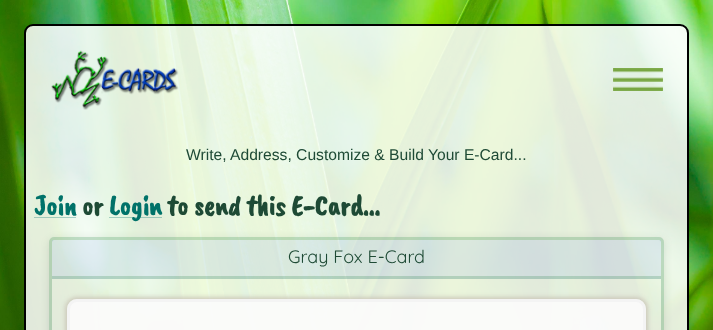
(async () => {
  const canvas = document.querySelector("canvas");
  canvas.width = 713;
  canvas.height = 330;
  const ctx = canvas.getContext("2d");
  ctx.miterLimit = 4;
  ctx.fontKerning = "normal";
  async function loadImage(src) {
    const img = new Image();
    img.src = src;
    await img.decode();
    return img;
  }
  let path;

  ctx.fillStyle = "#ffffff";
  ctx.fillRect(0, 0, 713, 330);
  ctx.drawImage(await loadImage("img/1.png"), 0, 0, 713, 330);
  ctx.fillStyle = "rgba(255, 255, 255, 0.86)";
  ctx.beginPath();
  ctx.roundRect(25, 25, 663, 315, 8);
  ctx.fill();
  ctx.strokeStyle = "#000000";
  ctx.lineWidth = 2;
  ctx.stroke();
  ctx.drawImage(await loadImage("img/2.png"), 51, 50, 128, 60);
  ctx.drawImage(await loadImage("img/3.png"), 613, 68, 50, 23);
  ctx.fillStyle = "rgba(0, 114, 105, 0.3)";
  ctx.fillRect(34, 217, 42, 1);
  ctx.fillRect(109, 217, 53, 1);
  ctx.save();
  path = new Path2D("M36 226H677V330H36ZM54 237H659C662 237 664 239 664 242V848C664 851 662 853 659 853H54C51 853 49 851 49 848V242C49 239 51 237 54 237Z");
  ctx.clip(path, "evenodd");
  ctx.fillStyle = "rgba(0, 0, 0, 0.1)";
  ctx.filter = "blur(4px)";
  ctx.beginPath();
  ctx.roundRect(49, 239, 615, 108, 5);
  ctx.fill();
  ctx.filter = "none";
  ctx.restore();
  ctx.beginPath();
  ctx.roundRect(50.5, 238.5, 612, 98, 3.5);
  ctx.strokeStyle = "rgba(0, 105, 35, 0.21)";
  ctx.lineWidth = 3;
  ctx.stroke();
  ctx.fillStyle = "rgba(0, 62, 255, 0.07)";
  ctx.fillRect(52, 240, 609, 39);
  ctx.fillStyle = "rgba(0, 105, 35, 0.18)";
  ctx.fillRect(52, 276, 609, 3);
  ctx.save();
  path = new Path2D("M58 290H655V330H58ZM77 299H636C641.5 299 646 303.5 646 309V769C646 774.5 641.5 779 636 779H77C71.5 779 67 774.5 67 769V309C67 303.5 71.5 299 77 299Z");
  ctx.clip(path, "evenodd");
  ctx.fillStyle = "rgba(201, 196, 183, 0.87)";
  ctx.filter = "blur(2px)";
  ctx.beginPath();
  ctx.roundRect(65, 297, 583, 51, 12);
  ctx.fill();
  ctx.filter = "none";
  ctx.restore();
  ctx.fillStyle = "rgba(251, 251, 251, 0.94)";
  ctx.beginPath();
  ctx.roundRect(68.5, 300.5, 576, 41, 8.5);
  ctx.fill();
  ctx.strokeStyle = "#f4f4f4";
  ctx.stroke();
  ctx.font = "15.65px Liberation Sans";
  ctx.fillStyle = "#1e4a35";
  ctx.fillText("Write, Address, Customize & Build Your E-Card...", 186, 160);
  ctx.font = "bold 29px Caveat Brush";
  ctx.fillStyle = "#007269";
  ctx.fillText("Join", 34, 215);
  ctx.fillStyle = "#1e4a35";
  ctx.fillText("or", 82, 215);
  ctx.fillStyle = "#007269";
  ctx.fillText("Login", 109, 215);
  ctx.wordSpacing = "-0.5px";
  ctx.fillStyle = "#1e4a35";
  ctx.fillText("to send this E-Card...", 167, 215);
  ctx.wordSpacing = "0px";
  ctx.font = "18px Quicksand";
  ctx.fillText("Gray Fox E-Card", 288, 263);
})();
